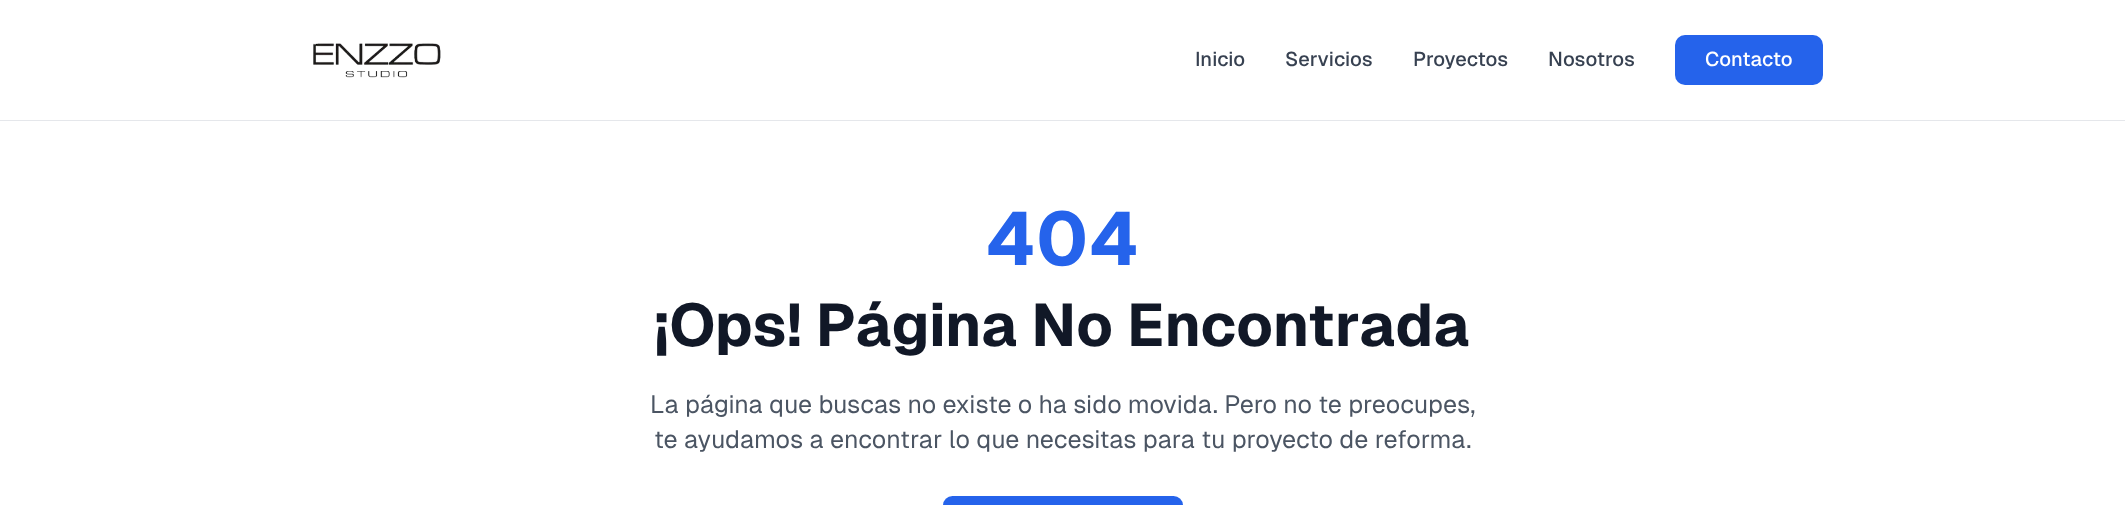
(async () => {
  const canvas = document.querySelector("canvas");
  canvas.width = 2125;
  canvas.height = 505;
  const ctx = canvas.getContext("2d");
  ctx.miterLimit = 4;
  ctx.fontKerning = "normal";
  async function loadImage(src) {
    const img = new Image();
    img.src = src;
    await img.decode();
    return img;
  }

  ctx.fillStyle = "#ffffff";
  ctx.fillRect(0, 0, 2125, 505);
  ctx.fillStyle = "#e5e7eb";
  ctx.fillRect(0, 120, 2125, 1);
  ctx.drawImage(await loadImage("img/1.png"), 313, 43, 128, 35);
  ctx.fillStyle = "#2563eb";
  ctx.beginPath();
  ctx.roundRect(1675, 35, 148, 50, 10);
  ctx.fill();
  ctx.beginPath();
  ctx.roundRect(943, 496, 240, 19, 10);
  ctx.fill();
  ctx.font = "500 20px Geist";
  ctx.fillStyle = "#374151";
  for (const [text, x, y] of [
    ["Inicio", 1195, 66],
    ["Servicios", 1285, 66],
    ["Proyectos", 1413, 66],
    ["Nosotros", 1548, 66],
  ]) {
    ctx.fillText(text, x, y);
  }
  ctx.fillStyle = "#ffffff";
  ctx.fillText("Contacto", 1705, 66);
  ctx.font = "bold 75px Geist";
  ctx.fillStyle = "#2563eb";
  ctx.fillText("404", 985, 265);
  ctx.font = "bold 60px Geist";
  ctx.fillStyle = "#111827";
  ctx.fillText("¡Ops! Página No Encontrada", 654, 346);
  ctx.font = "25px Geist";
  ctx.fillStyle = "#4b5563";
  ctx.fillText("La página que buscas no existe o ha sido movida. Pero no te preocupes,", 650, 413);
  ctx.fillText("te ayudamos a encontrar lo que necesitas para tu proyecto de reforma.", 654, 448);
})();
